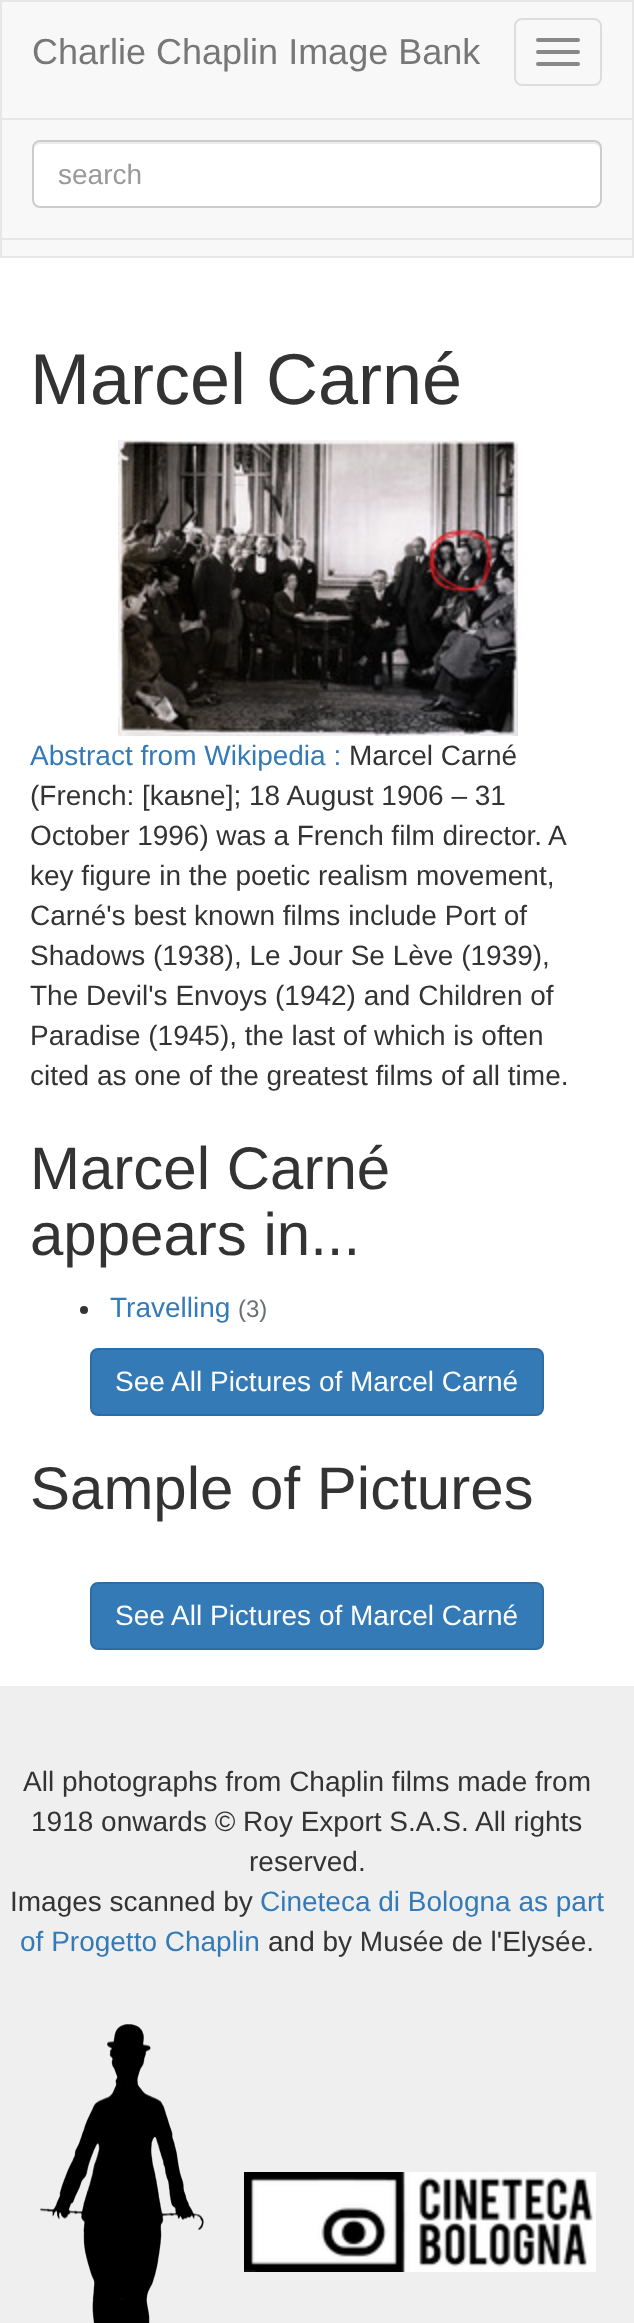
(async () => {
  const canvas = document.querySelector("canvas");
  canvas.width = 634;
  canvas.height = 2323;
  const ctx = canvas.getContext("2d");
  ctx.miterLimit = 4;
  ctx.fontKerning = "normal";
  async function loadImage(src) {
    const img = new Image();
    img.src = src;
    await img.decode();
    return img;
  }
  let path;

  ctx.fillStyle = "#ffffff";
  ctx.fillRect(0, 0, 634, 2323);
  ctx.fillStyle = "#f8f8f8";
  ctx.beginPath();
  ctx.rect(1, 1, 632, 256);
  ctx.fill();
  ctx.strokeStyle = "#e7e7e7";
  ctx.lineWidth = 2;
  ctx.stroke();
  ctx.beginPath();
  ctx.roundRect(515, 19, 86, 66, 7);
  ctx.strokeStyle = "#dddddd";
  ctx.stroke();
  ctx.fillStyle = "#888888";
  ctx.beginPath();
  ctx.roundRect(536, 38, 44, 4, 2);
  ctx.fill();
  ctx.beginPath();
  ctx.roundRect(536, 50, 44, 4, 2);
  ctx.fill();
  ctx.beginPath();
  ctx.roundRect(536, 62, 44, 4, 2);
  ctx.fill();
  ctx.fillStyle = "#e7e7e7";
  ctx.fillRect(2, 118, 630, 2);
  ctx.fillRect(2, 238, 630, 2);
  ctx.fillStyle = "#ffffff";
  ctx.beginPath();
  ctx.roundRect(32, 140, 570, 68, 8);
  ctx.fill();
  ctx.fillStyle = "#ececec";
  path = new Path2D("M40 144H594C597 144 600 147 600 150V148C600 145 597 142 594 142H40C37 142 34 145 34 148V150C34 147 37 144 40 144Z");
  ctx.fill(path);
  ctx.beginPath();
  ctx.roundRect(33, 141, 568, 66, 7);
  ctx.strokeStyle = "#cccccc";
  ctx.stroke();
  ctx.drawImage(await loadImage("img/1.png"), 118, 440, 400, 296);
  ctx.fillStyle = "#333333";
  ctx.beginPath();
  ctx.arc(84, 1310, 4, 0, Math.PI * 2);
  ctx.fill();
  ctx.fillStyle = "#337ab7";
  ctx.beginPath();
  ctx.roundRect(91, 1349, 452, 66, 7);
  ctx.fill();
  ctx.strokeStyle = "#2e6da4";
  ctx.stroke();
  ctx.beginPath();
  ctx.roundRect(91, 1583, 452, 66, 7);
  ctx.fill();
  ctx.stroke();
  ctx.fillStyle = "#efefef";
  ctx.fillRect(0, 1686, 634, 637);
  ctx.drawImage(await loadImage("img/2.png"), 40, 2024, 164, 299);
  ctx.drawImage(await loadImage("img/3.png"), 244, 2172, 352, 100);
  ctx.font = "36px Liberation Sans";
  ctx.fillStyle = "#777777";
  ctx.fillText("Charlie Chaplin Image Bank", 32, 64);
  ctx.font = "28px Liberation Sans";
  ctx.fillStyle = "#999999";
  ctx.fillText("search", 58, 184);
  ctx.font = "72px Liberation Sans";
  ctx.fillStyle = "#333333";
  ctx.fillText("Marcel Carné", 30, 404);
  ctx.font = "28px Liberation Sans";
  ctx.fillStyle = "#337ab7";
  ctx.fillText("Abstract from Wikipedia :", 30, 765);
  ctx.fillStyle = "#333333";
  ctx.fillText("Marcel Carné", 349, 765);
  ctx.fillText("(French: [kaʁne]; 18 August 1906 – 31", 30, 805);
  ctx.wordSpacing = "-0.25px";
  ctx.fillText("October 1996) was a French film director. A", 30, 845);
  ctx.wordSpacing = "0px";
  for (const [text, x, y] of [
    ["key figure in the poetic realism movement,", 30, 885],
    ["Carné's best known films include Port of", 30, 925],
    ["Shadows (1938), Le Jour Se Lève (1939),", 30, 965],
    ["The Devil's Envoys (1942) and Children of", 30, 1005],
    ["Paradise (1945), the last of which is often", 30, 1045],
    ["cited as one of the greatest films of all time.", 30, 1085],
  ]) {
    ctx.fillText(text, x, y);
  }
  ctx.font = "60px Liberation Sans";
  ctx.fillText("Marcel Carné", 30, 1189);
  ctx.fillText("appears in...", 30, 1255);
  ctx.font = "28px Liberation Sans";
  ctx.fillStyle = "#337ab7";
  ctx.fillText("Travelling", 110, 1317);
  ctx.font = "24px Liberation Sans";
  ctx.fillStyle = "#6a7176";
  ctx.fillText("(3)", 238, 1317);
  ctx.font = "28px Liberation Sans";
  ctx.fillStyle = "#ffffff";
  ctx.fillText("See All Pictures of Marcel Carné", 115, 1391);
  ctx.font = "60px Liberation Sans";
  ctx.fillStyle = "#333333";
  ctx.fillText("Sample of Pictures", 30, 1509);
  ctx.font = "28px Liberation Sans";
  ctx.fillStyle = "#ffffff";
  ctx.fillText("See All Pictures of Marcel Carné", 115, 1625);
  ctx.fillStyle = "#333333";
  for (const [text, x, y] of [
    ["All photographs from Chaplin films made from", 23, 1791],
    ["1918 onwards © Roy Export S.A.S. All rights", 31, 1831],
    ["reserved.", 249, 1871],
    ["Images scanned by", 10, 1911],
  ]) {
    ctx.fillText(text, x, y);
  }
  ctx.fillStyle = "#337ab7";
  ctx.fillText("Cineteca di Bologna as part", 260, 1911);
  ctx.fillText("of Progetto Chaplin", 20, 1951);
  ctx.fillStyle = "#333333";
  ctx.fillText("and by Musée de l'Elysée.", 268, 1951);
})();
